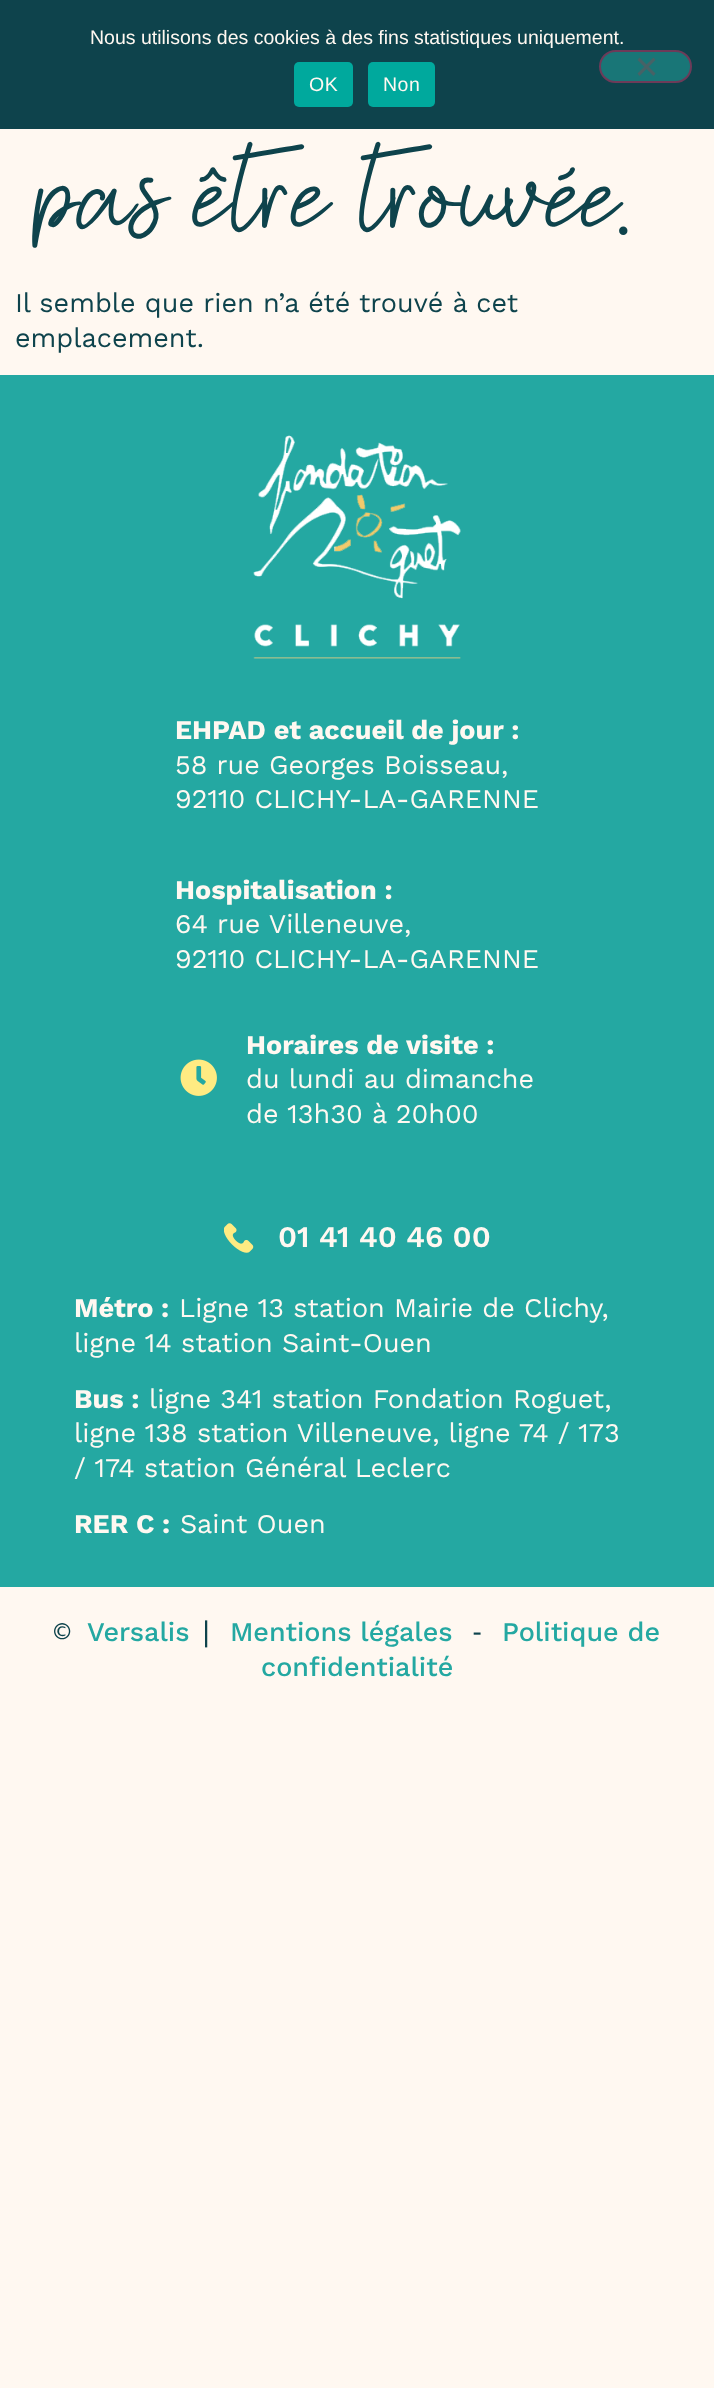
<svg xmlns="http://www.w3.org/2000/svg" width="714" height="2388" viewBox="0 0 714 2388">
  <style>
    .t1 { font: 19.5px Liberation Sans; fill: #fff8f1; }
    .t2 { font: 19.5px Liberation Sans; letter-spacing: 0.5px; fill: #fff8f1; }
    .t3 { font: 102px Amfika; fill: #0e434c; }
    .t4 { font: 27px Work Sans; fill: #0e434c; }
    .t5 { font: bold 27px Work Sans; fill: #fff8f1; }
    .t6 { font: 27px Work Sans; fill: #fff8f1; }
    .t7 { font: 600 30px Work Sans; fill: #fff8f1; }
    .t8 { font: 27px DejaVu Sans Mono; fill: #0e434c; }
    .t9 { font: 500 27px Work Sans; fill: #24a8a2; }
  </style>
  <rect width="100%" height="100%" fill="#fff8f1"/>
  <rect x="0" y="0" width="714" height="129" fill="#0e434c"/>
  <text x="90" y="44" class="t1">Nous utilisons des cookies à des fins statistiques uniquement.</text>
  <rect x="600" y="51" width="91" height="31" rx="15.5" fill="#197677" stroke="#6d3b59" stroke-width="2"/>
  <path d="M653.5 57.5L655.5 60L639.5 76L637.5 73.5Z" fill="#476266"/>
  <path d="M637.5 60L639.5 57.5L655.5 73.5L653.5 76Z" fill="#476266"/>
  <rect x="294" y="62" width="59" height="45" rx="5" fill="#00a99d"/>
  <text x="309" y="91" class="t2">OK</text>
  <rect x="368" y="62" width="67" height="45" rx="5" fill="#00a99d"/>
  <text x="383" y="91" class="t2">Non</text>
  <text x="30" y="231" class="t3">pas être trouvée.</text>
  <text x="15" y="312" class="t4">Il semble que rien n’a été trouvé à cet</text>
  <text x="15" y="347" class="t4">emplacement.</text>
  <rect x="0" y="375" width="714" height="1212" fill="#24a8a2"/>
  <image x="253" y="435" width="208" height="224" href="images/1.png"/>
  <text x="175" y="739" class="t5">EHPAD et accueil de jour :</text>
  <text x="175" y="774" class="t6">58 rue Georges Boisseau,</text>
  <text x="175" y="808" class="t6">92110 CLICHY-LA-GARENNE</text>
  <text x="175" y="899" class="t5">Hospitalisation :</text>
  <text x="175" y="933" class="t6">64 rue Villeneuve,</text>
  <text x="175" y="968" class="t6">92110 CLICHY-LA-GARENNE</text>
  <image x="180" y="1059" width="37" height="37" href="images/2.png"/>
  <text x="246" y="1054" class="t5">Horaires de visite :</text>
  <text x="246" y="1088" class="t6">du lundi au dimanche</text>
  <text x="246" y="1123" class="t6">de 13h30 à 20h00</text>
  <image x="224" y="1223" width="30" height="30" href="images/3.png"/>
  <text x="278" y="1247" class="t7">01 41 40 46 00</text>
  <text x="74" y="1317" class="t5">Métro :</text>
  <text x="179" y="1317" class="t6">Ligne 13 station Mairie de Clichy,</text>
  <text x="74" y="1352" class="t6">ligne 14 station Saint-Ouen</text>
  <text x="74" y="1408" class="t5">Bus :</text>
  <text x="149" y="1408" class="t6">ligne 341 station Fondation Roguet,</text>
  <text x="74" y="1442" class="t6">ligne 138 station Villeneuve, ligne 74 / 173</text>
  <text x="74" y="1477" class="t6">/ 174 station Général Leclerc</text>
  <text x="74" y="1533" class="t5">RER C :</text>
  <text x="180" y="1533" class="t6">Saint Ouen</text>
  <text x="54" y="1641" class="t8">©</text>
  <text x="87" y="1641" class="t9">Versalis</text>
  <text x="198" y="1641" class="t8">|</text>
  <text x="230" y="1641" class="t9">Mentions légales</text>
  <text x="469" y="1641" class="t8">-</text>
  <text x="502" y="1641" class="t9">Politique de</text>
  <text x="261" y="1676" class="t9">confidentialité</text>
</svg>
